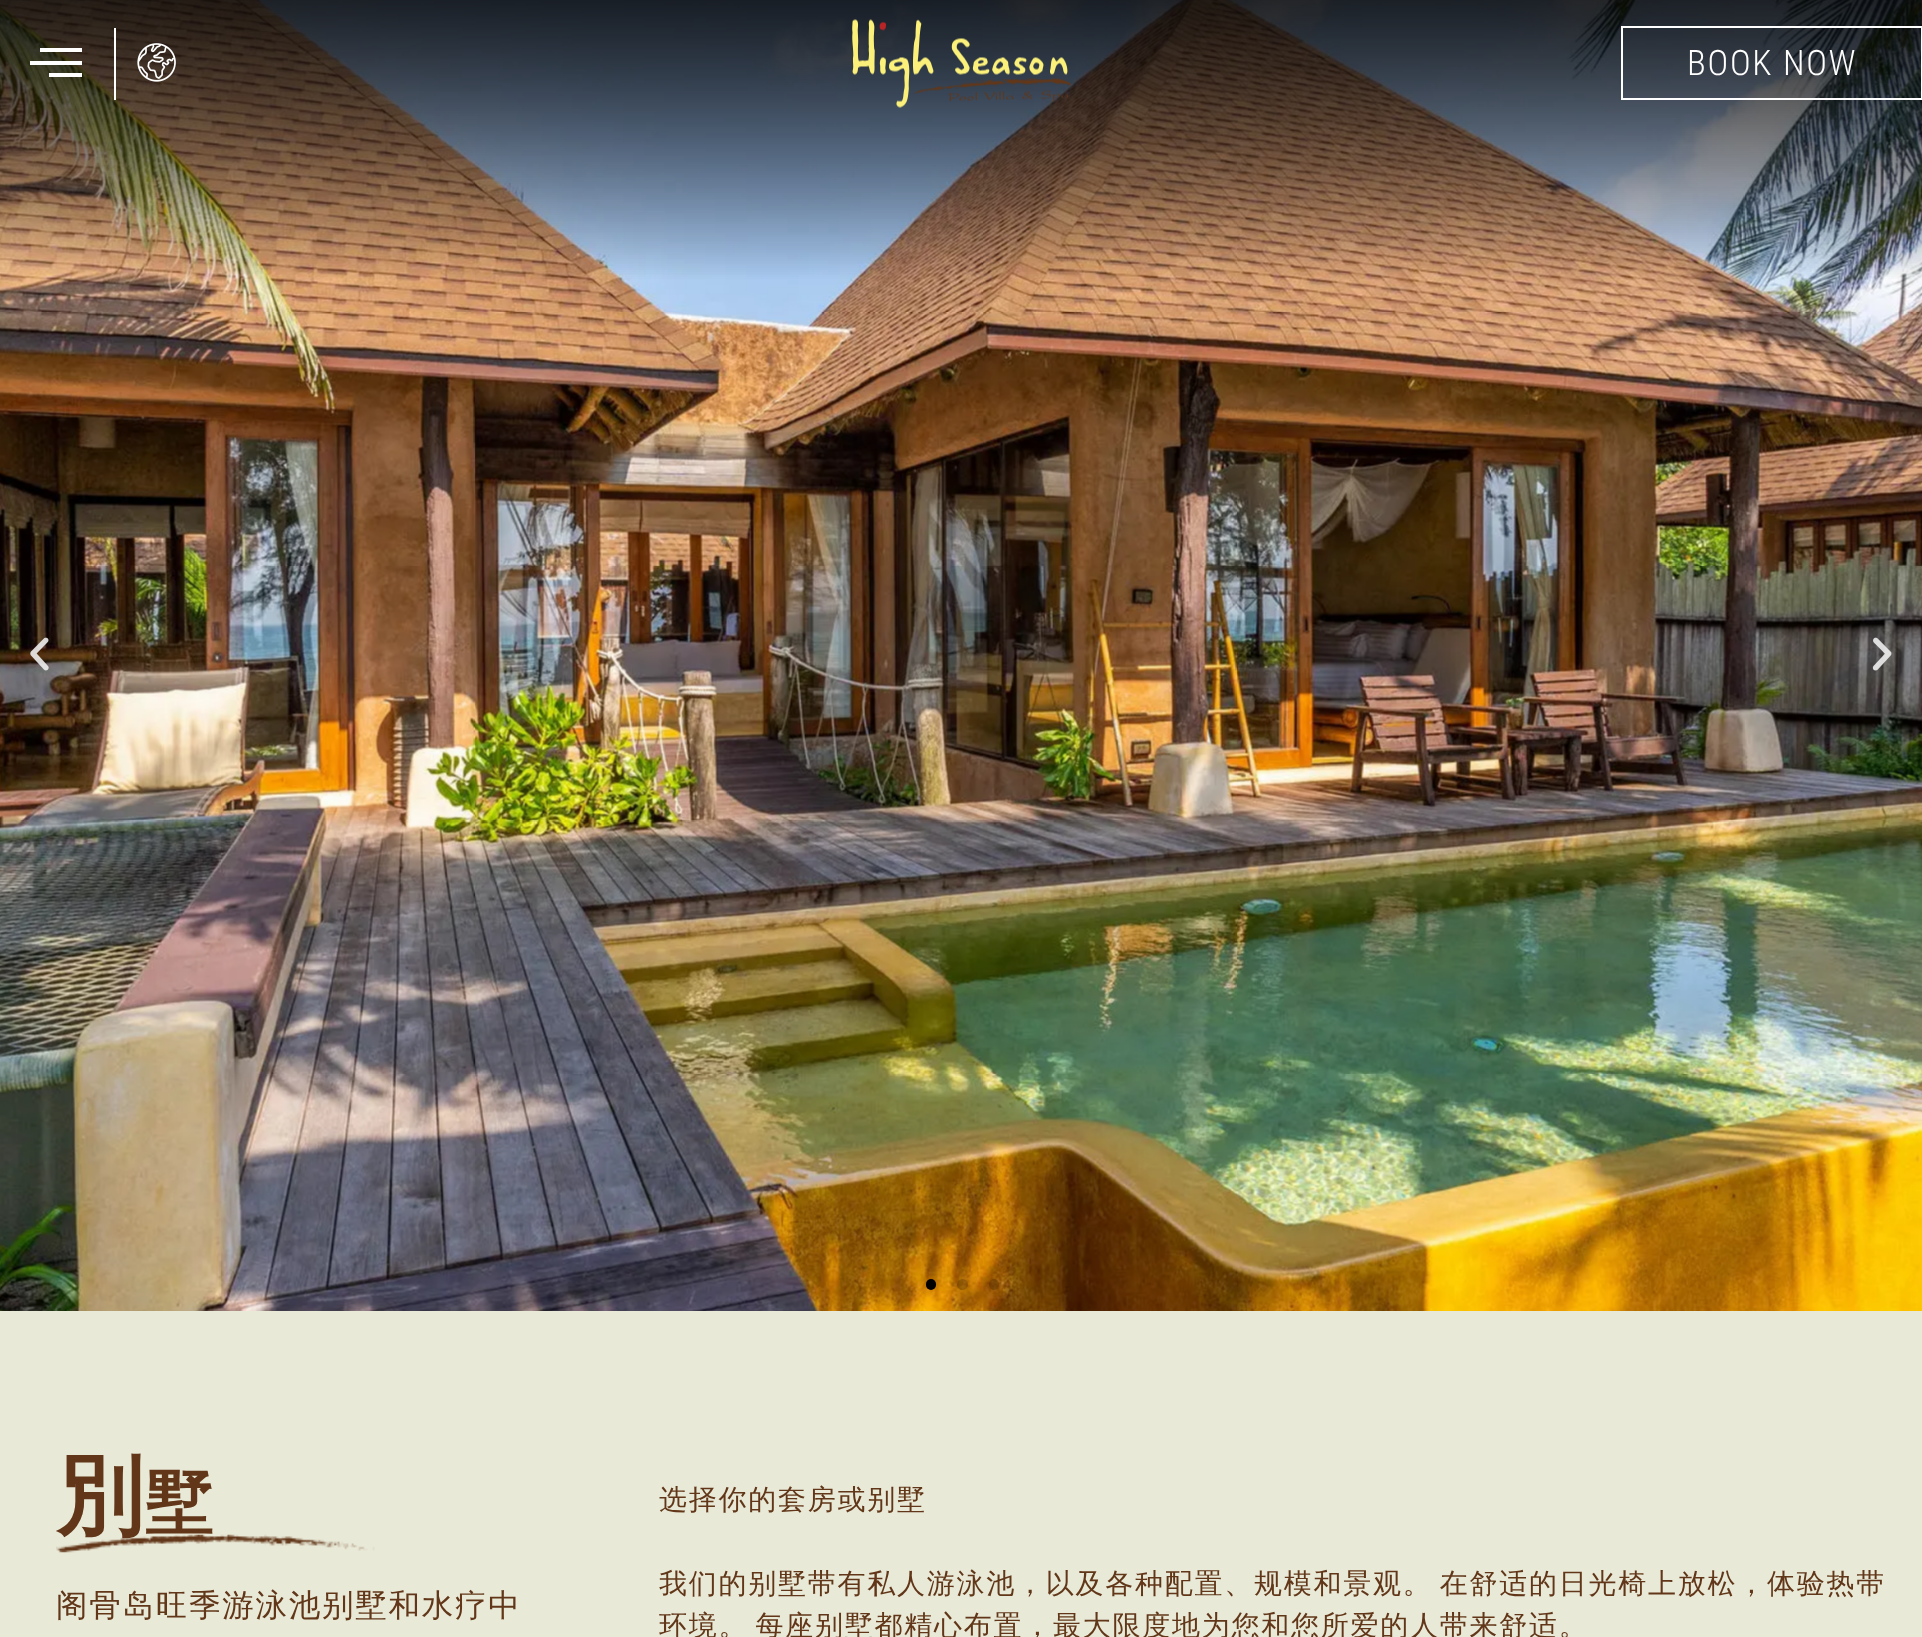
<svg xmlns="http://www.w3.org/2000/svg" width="1922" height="1637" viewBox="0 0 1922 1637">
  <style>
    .t1 { font: 300 35px Roboto Condensed; letter-spacing: 1.75px; fill: #fff; }
    .t2 { font: bold 88px WenQuanYi Zen Hei; letter-spacing: 1.75px; fill: #623719; }
    .t3 { font: bold 68px WenQuanYi Zen Hei; letter-spacing: 1.75px; fill: #623719; }
    .t4 { font: 500 31.5px WenQuanYi Zen Hei; letter-spacing: 1.75px; fill: #623719; }
    .t5 { font: 500 28px WenQuanYi Zen Hei; letter-spacing: 1.75px; fill: #623719; }
  </style>
  <rect width="100%" height="100%" fill="#e9e9d7"/>
  <image x="0" y="0" width="1922" height="1311" href="images/3.png"/>
  <path d="M30 65H82V61H30ZM49 77H82V73H49ZM40 48V52H82V48Z" fill="#fff"/>
  <rect x="114" y="28" width="2" height="72" fill="#fff"/>
  <image x="137" y="43" width="39" height="39" href="images/1.png"/>
  <image x="852" y="19" width="219" height="89" href="images/2.png"/>
  <rect x="1622" y="27" width="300" height="72" fill="none" stroke="#fff" stroke-width="2"/>
  <text x="1687" y="75" class="t1">BOOK NOW</text>
  <image x="30" y="637" width="19" height="34" href="images/4.png"/>
  <image x="1872" y="637" width="20" height="34" href="images/5.png"/>
  <rect x="926" y="1279" width="10" height="11" rx="5" fill="#000"/>
  <circle cx="962.5" cy="1284.5" r="5.5" fill="#00000033"/>
  <rect x="989" y="1279" width="10" height="11" rx="5" fill="#00000033"/>
  <image x="56" y="1534" width="319" height="19" href="images/6.png"/>
  <text x="56" y="1526" class="t2">別</text>
  <text x="145" y="1526" class="t3">墅</text>
  <text x="56" y="1616" class="t4">阁骨岛旺季游泳池别墅和水疗中</text>
  <text x="659" y="1509" class="t5">选择你的套房或别墅</text>
  <text x="659" y="1593" word-spacing="-3" class="t5">我们的别墅带有私人游泳池，以及各种配置、规模和景观。 在舒适的日光椅上放松，体验热带</text>
  <text x="659" y="1635" word-spacing="-3" class="t5">环境。 每座别墅都精心布置，最大限度地为您和您所爱的人带来舒适。</text>
</svg>
